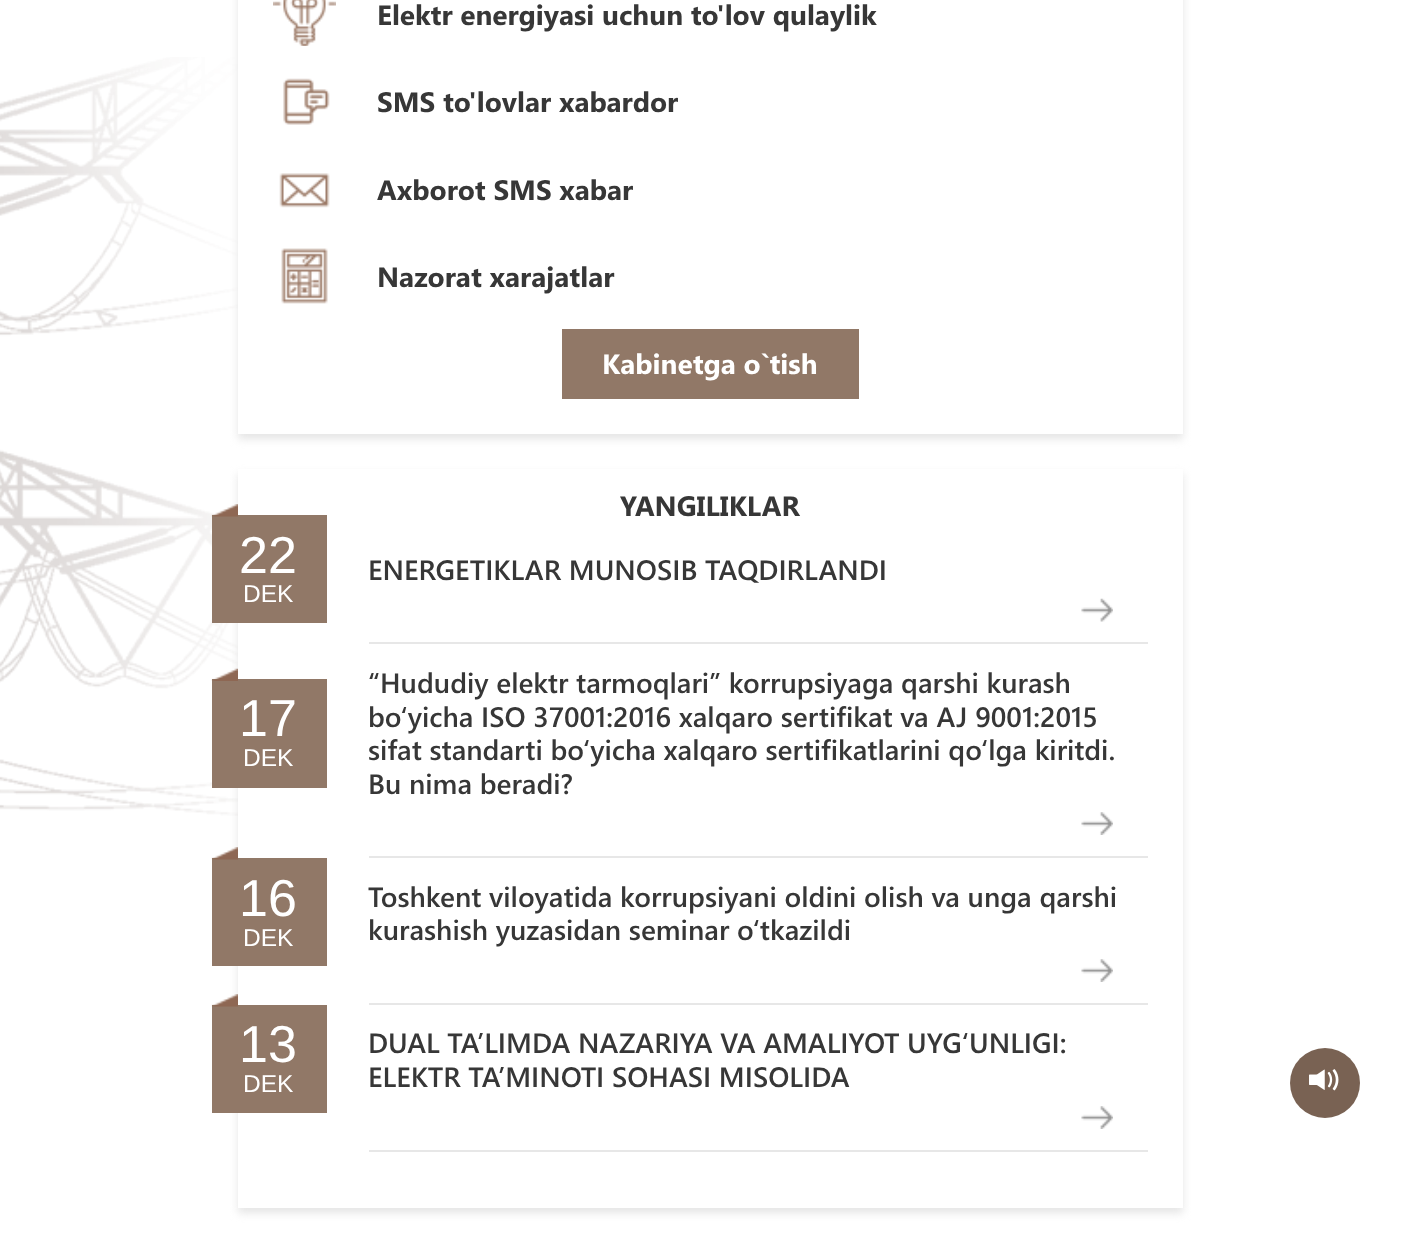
<svg xmlns="http://www.w3.org/2000/svg" width="1419" height="1248" viewBox="0 0 1419 1248">
  <style>
    .t1 { font: bold 28px Segoe UI; fill: #373737; }
    .t2 { font: bold 28px Segoe UI; fill: #fff; }
    .t3 { font: 52px Liberation Sans; fill: #fff; }
    .t4 { font: 24.5px Liberation Sans; fill: #fff; }
    .t5 { font: 600 28px Segoe UI; fill: #373737; }
  </style>
  <rect width="100%" height="100%" fill="#fff"/>
  <image x="0" y="57" width="238" height="759" href="images/1.png"/>
  <rect x="238" y="-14" width="945" height="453" fill="#e5e5e5" filter="blur(4.5px)"/>
  <rect x="238" y="0" width="945" height="434" fill="#fff"/>
  <image x="273" y="0" width="63" height="46" href="images/2.png"/>
  <text x="377" y="25" class="t1">Elektr energiyasi uchun to'lov qulaylik</text>
  <image x="283" y="78" width="47" height="47" href="images/3.png"/>
  <text x="377" y="112" class="t1">SMS to'lovlar xabardor</text>
  <image x="279" y="173" width="51" height="35" href="images/4.png"/>
  <text x="377" y="200" class="t1">Axborot SMS xabar</text>
  <image x="281" y="248" width="47" height="56" href="images/5.png"/>
  <text x="377" y="287" class="t1">Nazorat xarajatlar</text>
  <rect x="562" y="329" width="297" height="70" fill="#917867"/>
  <text x="602" y="374" class="t2">Kabinetga o`tish</text>
  <rect x="238" y="474" width="945" height="739" fill="#e5e5e5" filter="blur(4.5px)"/>
  <rect x="238" y="469" width="945" height="739" fill="#fff"/>
  <text x="620" y="516" class="t1">YANGILIKLAR</text>
  <rect x="212" y="515" width="115" height="108" fill="#917867"/>
  <image x="211" y="504" width="27" height="13" href="images/6.png"/>
  <text x="239" y="573" class="t3">22</text>
  <text x="243" y="602" class="t4">DEK</text>
  <text x="368" y="580" class="t5">ENERGETIKLAR MUNOSIB TAQDIRLANDI</text>
  <image x="1081" y="598" width="32" height="24" href="images/7.png"/>
  <rect x="369" y="642" width="779" height="2" fill="#e7e7e7"/>
  <rect x="212" y="679" width="115" height="109" fill="#917867"/>
  <image x="211" y="668" width="27" height="13" href="images/8.png"/>
  <text x="239" y="736" class="t3">17</text>
  <text x="243" y="766" class="t4">DEK</text>
  <text x="368" y="693" class="t5">“Hududiy elektr tarmoqlari” korrupsiyaga qarshi kurash</text>
  <text x="368" y="727" class="t5">bo‘yicha ISO 37001:2016 xalqaro sertifikat va AJ 9001:2015</text>
  <text x="368" y="760" class="t5">sifat standarti bo‘yicha xalqaro sertifikatlarini qo‘lga kiritdi.</text>
  <text x="368" y="794" class="t5">Bu nima beradi?</text>
  <image x="1081" y="812" width="32" height="23" href="images/9.png"/>
  <rect x="369" y="856" width="779" height="2" fill="#e7e7e7"/>
  <rect x="212" y="858" width="115" height="108" fill="#917867"/>
  <image x="211" y="847" width="27" height="13" href="images/10.png"/>
  <text x="239" y="916" class="t3">16</text>
  <text x="243" y="946" class="t4">DEK</text>
  <text x="368" y="907" class="t5">Toshkent viloyatida korrupsiyani oldini olish va unga qarshi</text>
  <text x="368" y="940" class="t5">kurashish yuzasidan seminar o‘tkazildi</text>
  <image x="1081" y="959" width="32" height="23" href="images/9.png"/>
  <rect x="369" y="1003" width="779" height="2" fill="#e7e7e7"/>
  <rect x="212" y="1005" width="115" height="108" fill="#917867"/>
  <image x="211" y="994" width="27" height="13" href="images/10.png"/>
  <text x="239" y="1062" class="t3">13</text>
  <text x="243" y="1092" class="t4">DEK</text>
  <text x="368" y="1053" class="t5">DUAL TA’LIMDA NAZARIYA VA AMALIYOT UYG‘UNLIGI:</text>
  <text x="368" y="1087" class="t5">ELEKTR TA’MINOTI SOHASI MISOLIDA</text>
  <image x="1081" y="1106" width="32" height="23" href="images/9.png"/>
  <rect x="369" y="1150" width="779" height="2" fill="#e7e7e7"/>
  <circle cx="1325" cy="1083" r="35" fill="#796253"/>
  <image x="1309" y="1069" width="30" height="22" href="images/11.png"/>
</svg>
